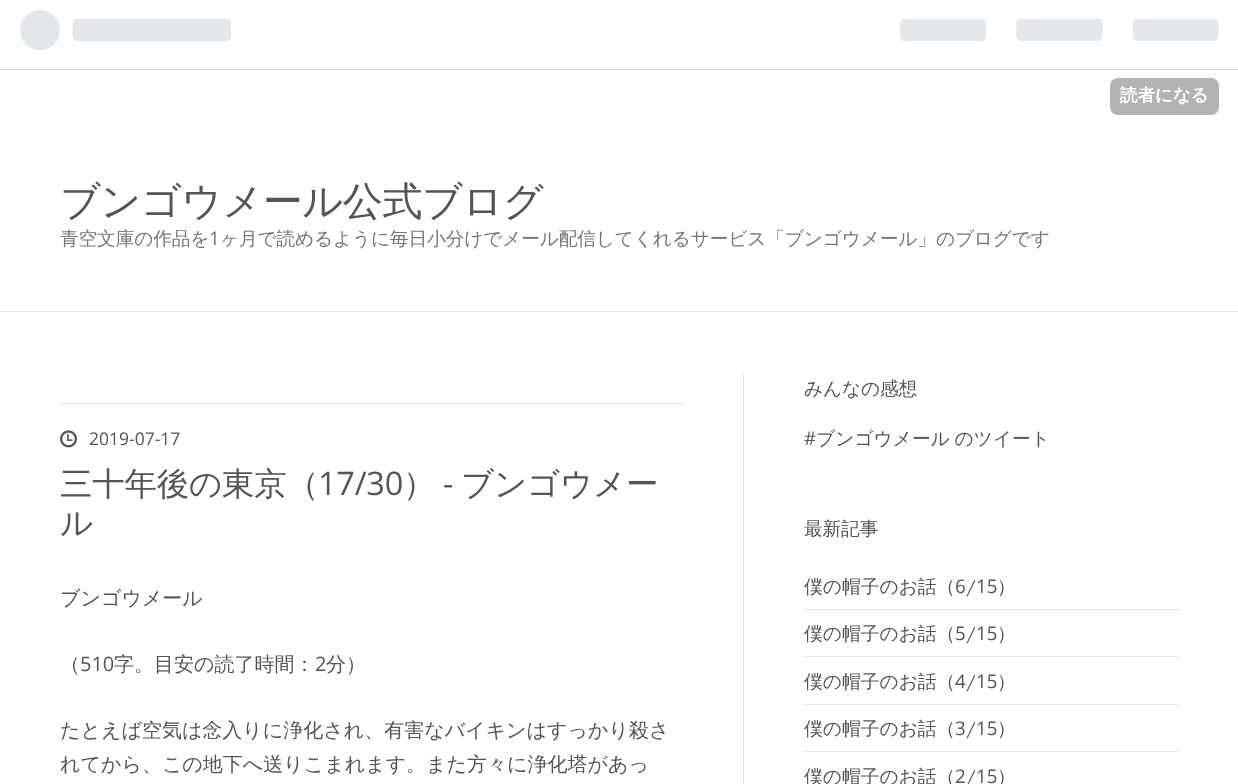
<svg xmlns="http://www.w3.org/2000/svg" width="1238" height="784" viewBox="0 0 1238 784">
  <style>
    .t1 { font: bold 17.5px WenQuanYi Zen Hei; fill: #fff; }
    .t2 { font: 500 40px WenQuanYi Zen Hei; letter-spacing: -0.4px; fill: #555; }
    .t3 { font: 500 18.75px WenQuanYi Zen Hei; letter-spacing: -0.2px; fill: #777; }
    .t4 { font: 18.75px Open Sans; letter-spacing: -0.2px; fill: #777; }
    .t5 { font: 17.5px Open Sans; fill: #555; }
    .t6 { font: 500 32.5px WenQuanYi Zen Hei; letter-spacing: -0.25px; fill: #555; }
    .t7 { font: 32.5px Open Sans; letter-spacing: -0.25px; fill: #555; }
    .t8 { font: 500 20px WenQuanYi Zen Hei; fill: #555; }
    .t9 { font: 20px Open Sans; fill: #555; }
    .t10 { font: 500 18.75px WenQuanYi Zen Hei; letter-spacing: -0.2px; fill: #555; }
    .t11 { font: 18.75px Open Sans; fill: #555; }
    .t12 { font: 500 18.75px WenQuanYi Zen Hei; fill: #555; }
  </style>
  <rect width="100%" height="100%" fill="#fff"/>
  <rect x="0" y="69" width="1238" height="1" fill="#d2d8dd"/>
  <image x="20" y="10" width="211" height="40" href="images/1.png"/>
  <image x="900" y="19" width="319" height="22" href="images/2.png"/>
  <rect x="1110" y="78" width="109" height="37" rx="8" fill="#b1b3b5"/>
  <text x="1120" y="101" class="t1">読者になる</text>
  <rect x="0" y="311" width="1238" height="1" fill="#e4e4e4"/>
  <text x="60" y="215" class="t2">ブンゴウメール公式ブログ</text>
  <text x="60" y="245" class="t3">青空文庫の作品を</text>
  <text x="209" y="245" class="t4">1</text>
  <text x="220" y="245" class="t3">ヶ月で読めるように毎日小分けでメール配信してくれるサービス「ブンゴウメール」のブログです</text>
  <rect x="743" y="373" width="1" height="411" fill="#e4e4e4"/>
  <rect x="60" y="403" width="623" height="1" fill="#e4e4e4"/>
  <image x="60" y="430" width="17" height="18" href="images/3.png"/>
  <text x="89" y="445" class="t5">2019-07-17</text>
  <text x="60" y="495" class="t6">三十年後の東京（</text>
  <text x="318" y="495" class="t7">17/30</text>
  <text x="403" y="495" class="t6">）</text>
  <text x="443" y="495" class="t7">-</text>
  <text x="461" y="495" class="t6">ブンゴウメー</text>
  <text x="60" y="534" class="t6">ル</text>
  <text x="60" y="605" class="t8">ブンゴウメール</text>
  <text x="60" y="671" class="t8">（</text>
  <text x="80" y="671" class="t9">510</text>
  <text x="114" y="671" class="t8">字。目安の読了時間：</text>
  <text x="315" y="671" class="t9">2</text>
  <text x="326" y="671" class="t8">分）</text>
  <text x="60" y="737" class="t8">たとえば空気は念入りに浄化され、有害なバイキンはすっかり殺さ</text>
  <text x="60" y="771" class="t8">れてから、この地下へ送りこまれます。また方々に浄化塔があっ</text>
  <text x="804" y="395" class="t10">みんなの感想</text>
  <text x="804" y="445" class="t11">#</text>
  <text x="816" y="445" word-spacing="-1" class="t12">ブンゴウメール のツイート</text>
  <text x="804" y="535" class="t10">最新記事</text>
  <text x="804" y="593" class="t12">僕の帽子のお話（</text>
  <text x="955" y="593" class="t11">6</text>
  <text x="966" y="593" class="t12">/</text>
  <text x="976" y="593" class="t11">15</text>
  <text x="997" y="593" class="t12">）</text>
  <rect x="804" y="609" width="375" height="1" fill="#e4e4e4"/>
  <text x="804" y="640" class="t12">僕の帽子のお話（</text>
  <text x="955" y="640" class="t11">5</text>
  <text x="966" y="640" class="t12">/</text>
  <text x="976" y="640" class="t11">15</text>
  <text x="997" y="640" class="t12">）</text>
  <rect x="804" y="656" width="375" height="1" fill="#e4e4e4"/>
  <text x="804" y="688" class="t12">僕の帽子のお話（</text>
  <text x="955" y="688" class="t11">4</text>
  <text x="966" y="688" class="t12">/</text>
  <text x="976" y="688" class="t11">15</text>
  <text x="997" y="688" class="t12">）</text>
  <rect x="804" y="704" width="375" height="1" fill="#e4e4e4"/>
  <text x="804" y="735" class="t12">僕の帽子のお話（</text>
  <text x="955" y="735" class="t11">3</text>
  <text x="966" y="735" class="t12">/</text>
  <text x="976" y="735" class="t11">15</text>
  <text x="997" y="735" class="t12">）</text>
  <rect x="804" y="751" width="375" height="1" fill="#e4e4e4"/>
  <text x="804" y="783" class="t12">僕の帽子のお話（</text>
  <text x="955" y="783" class="t11">2</text>
  <text x="966" y="783" class="t12">/</text>
  <text x="976" y="783" class="t11">15</text>
  <text x="997" y="783" class="t12">）</text>
</svg>
